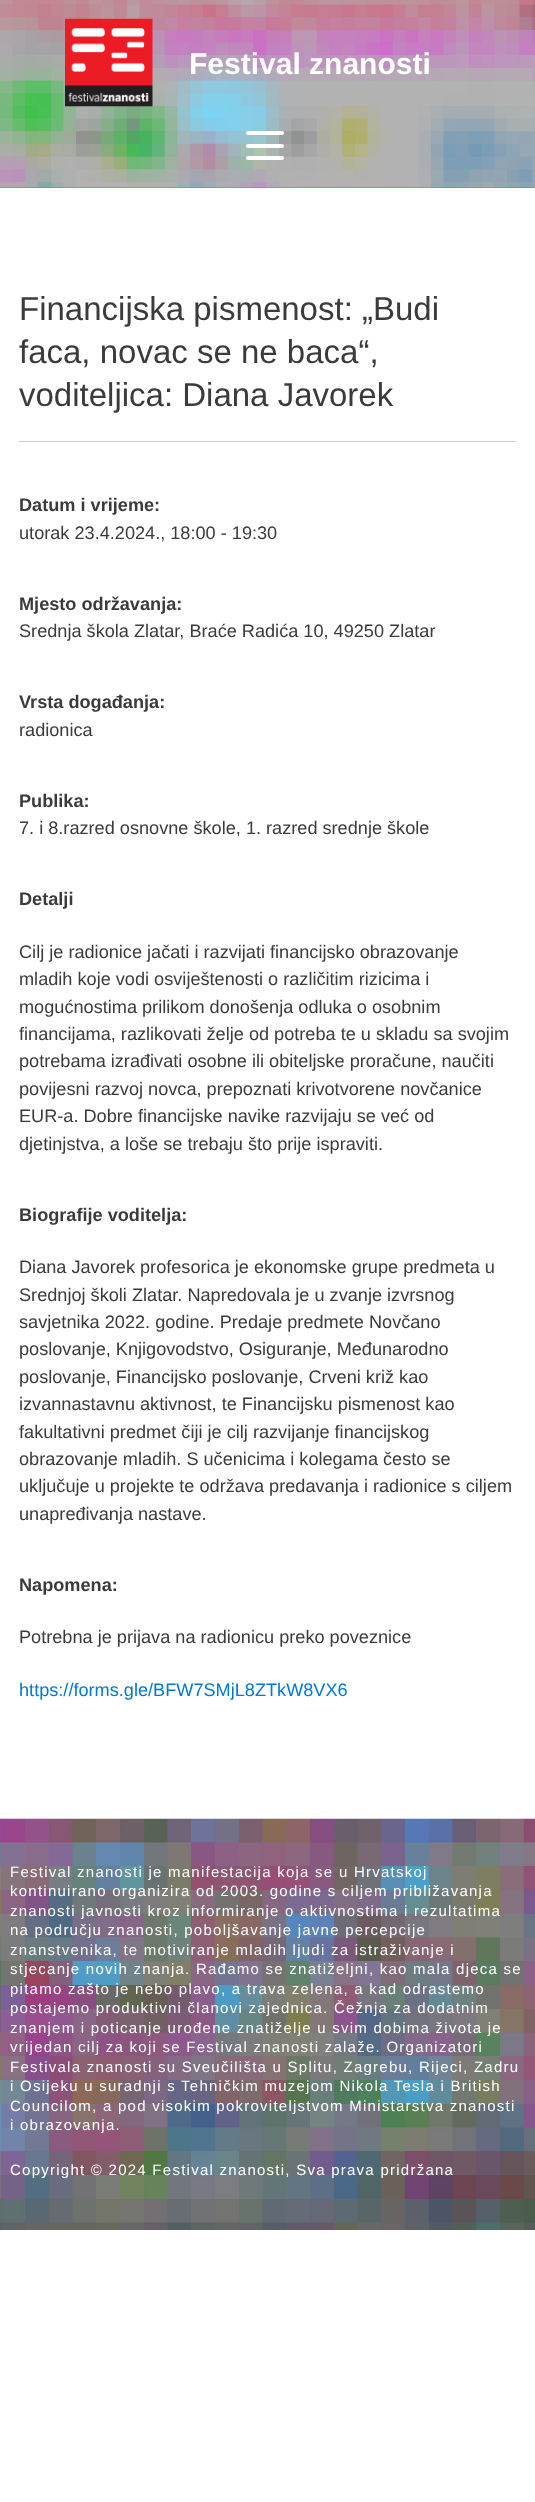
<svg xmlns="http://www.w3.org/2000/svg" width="535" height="2502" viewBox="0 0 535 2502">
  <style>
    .t1 { font: bold 30px Liberation Sans; fill: #fff; }
    .t2 { font: 33px Liberation Sans; fill: #3b3b3b; }
    .t3 { font: bold 18.15px Liberation Sans; fill: #3b3b3b; }
    .t4 { font: 18.15px Liberation Sans; fill: #3b3b3b; }
    .t5 { font: 18.15px Liberation Sans; fill: #07d; }
    .t6 { font: 15px Liberation Sans; letter-spacing: 1.25px; fill: #fff; }
  </style>
  <rect width="100%" height="100%" fill="#fff"/>
  <rect x="0" y="187" width="535" height="1" fill="#08a2bd"/>
  <image x="0" y="0" width="535" height="188" href="images/1.png"/>
  <image x="65" y="18" width="88" height="89" href="images/2.png"/>
  <text x="189" y="74" class="t1">Festival znanosti</text>
  <rect x="246" y="131" width="38" height="4" rx="2" fill="#fff"/>
  <rect x="246" y="144" width="38" height="4" rx="2" fill="#fff"/>
  <rect x="246" y="156" width="38" height="4" rx="2" fill="#fff"/>
  <rect x="19" y="441" width="497" height="1" fill="#ccc"/>
  <text x="19" y="320" class="t2">Financijska pismenost: „Budi</text>
  <text x="19" y="363" class="t2">faca, novac se ne baca“,</text>
  <text x="19" y="406" class="t2">voditeljica: Diana Javorek</text>
  <text x="19" y="511" class="t3">Datum i vrijeme:</text>
  <text x="19" y="539" class="t4">utorak 23.4.2024., 18:00 - 19:30</text>
  <text x="19" y="610" class="t3">Mjesto održavanja:</text>
  <text x="19" y="637" class="t4">Srednja škola Zlatar, Braće Radića 10, 49250 Zlatar</text>
  <text x="19" y="708" class="t3">Vrsta događanja:</text>
  <text x="19" y="736" class="t4">radionica</text>
  <text x="19" y="807" class="t3">Publika:</text>
  <text x="19" y="834" class="t4">7. i 8.razred osnovne škole, 1. razred srednje škole</text>
  <text x="19" y="905" class="t3">Detalji</text>
  <text x="19" y="958" class="t4">Cilj je radionice jačati i razvijati financijsko obrazovanje</text>
  <text x="19" y="985" class="t4">mladih koje vodi osviještenosti o različitim rizicima i</text>
  <text x="19" y="1013" class="t4">mogućnostima prilikom donošenja odluka o osobnim</text>
  <text x="19" y="1040" class="t4">financijama, razlikovati želje od potreba te u skladu sa svojim</text>
  <text x="19" y="1067" class="t4">potrebama izrađivati osobne ili obiteljske proračune, naučiti</text>
  <text x="19" y="1095" class="t4">povijesni razvoj novca, prepoznati krivotvorene novčanice</text>
  <text x="19" y="1122" class="t4">EUR-a. Dobre financijske navike razvijaju se već od</text>
  <text x="19" y="1150" class="t4">djetinjstva, a loše se trebaju što prije ispraviti.</text>
  <text x="19" y="1221" class="t3">Biografije voditelja:</text>
  <text x="19" y="1273" class="t4">Diana Javorek profesorica je ekonomske grupe predmeta u</text>
  <text x="19" y="1301" class="t4">Srednjoj školi Zlatar. Napredovala je u zvanje izvrsnog</text>
  <text x="19" y="1328" class="t4">savjetnika 2022. godine. Predaje predmete Novčano</text>
  <text x="19" y="1355" class="t4">poslovanje, Knjigovodstvo, Osiguranje, Međunarodno</text>
  <text x="19" y="1383" class="t4">poslovanje, Financijsko poslovanje, Crveni križ kao</text>
  <text x="19" y="1410" class="t4">izvannastavnu aktivnost, te Financijsku pismenost kao</text>
  <text x="19" y="1438" class="t4">fakultativni predmet čiji je cilj razvijanje financijskog</text>
  <text x="19" y="1465" class="t4">obrazovanje mladih. S učenicima i kolegama često se</text>
  <text x="19" y="1492" class="t4">uključuje u projekte te održava predavanja i radionice s ciljem</text>
  <text x="19" y="1520" class="t4">unapređivanja nastave.</text>
  <text x="19" y="1591" class="t3">Napomena:</text>
  <text x="19" y="1643" class="t4">Potrebna je prijava na radionicu preko poveznice</text>
  <text x="19" y="1696" class="t5">https://forms.gle/BFW7SMjL8ZTkW8VX6</text>
  <image x="0" y="1818" width="535" height="412" href="images/3.png"/>
  <text x="10" y="1877" class="t6">Festival znanosti je manifestacija koja se u Hrvatskoj</text>
  <text x="10" y="1896" class="t6">kontinuirano organizira od 2003. godine s ciljem približavanja</text>
  <text x="10" y="1916" class="t6">znanosti javnosti kroz informiranje o aktivnostima i rezultatima</text>
  <text x="10" y="1935" class="t6">na području znanosti, poboljšavanje javne percepcije</text>
  <text x="10" y="1955" class="t6">znanstvenika, te motiviranje mladih ljudi za istraživanje i</text>
  <text x="10" y="1974" class="t6">stjecanje novih znanja. Rađamo se znatiželjni, kao mala djeca se</text>
  <text x="10" y="1994" class="t6">pitamo zašto je nebo plavo, a trava zelena, a kad odrastemo</text>
  <text x="10" y="2013" class="t6">postajemo produktivni članovi zajednica. Čežnja za dodatnim</text>
  <text x="10" y="2033" class="t6">znanjem i poticanje urođene znatiželje u svim dobima života je</text>
  <text x="10" y="2052" class="t6">vrijedan cilj za koji se Festival znanosti zalaže. Organizatori</text>
  <text x="10" y="2072" class="t6">Festivala znanosti su Sveučilišta u Splitu, Zagrebu, Rijeci, Zadru</text>
  <text x="10" y="2091" class="t6">i Osijeku u suradnji s Tehničkim muzejom Nikola Tesla i British</text>
  <text x="10" y="2111" class="t6">Councilom, a pod visokim pokroviteljstvom Ministarstva znanosti</text>
  <text x="10" y="2130" class="t6">i obrazovanja.</text>
  <text x="10" y="2175" class="t6">Copyright © 2024 Festival znanosti, Sva prava pridržana</text>
</svg>
